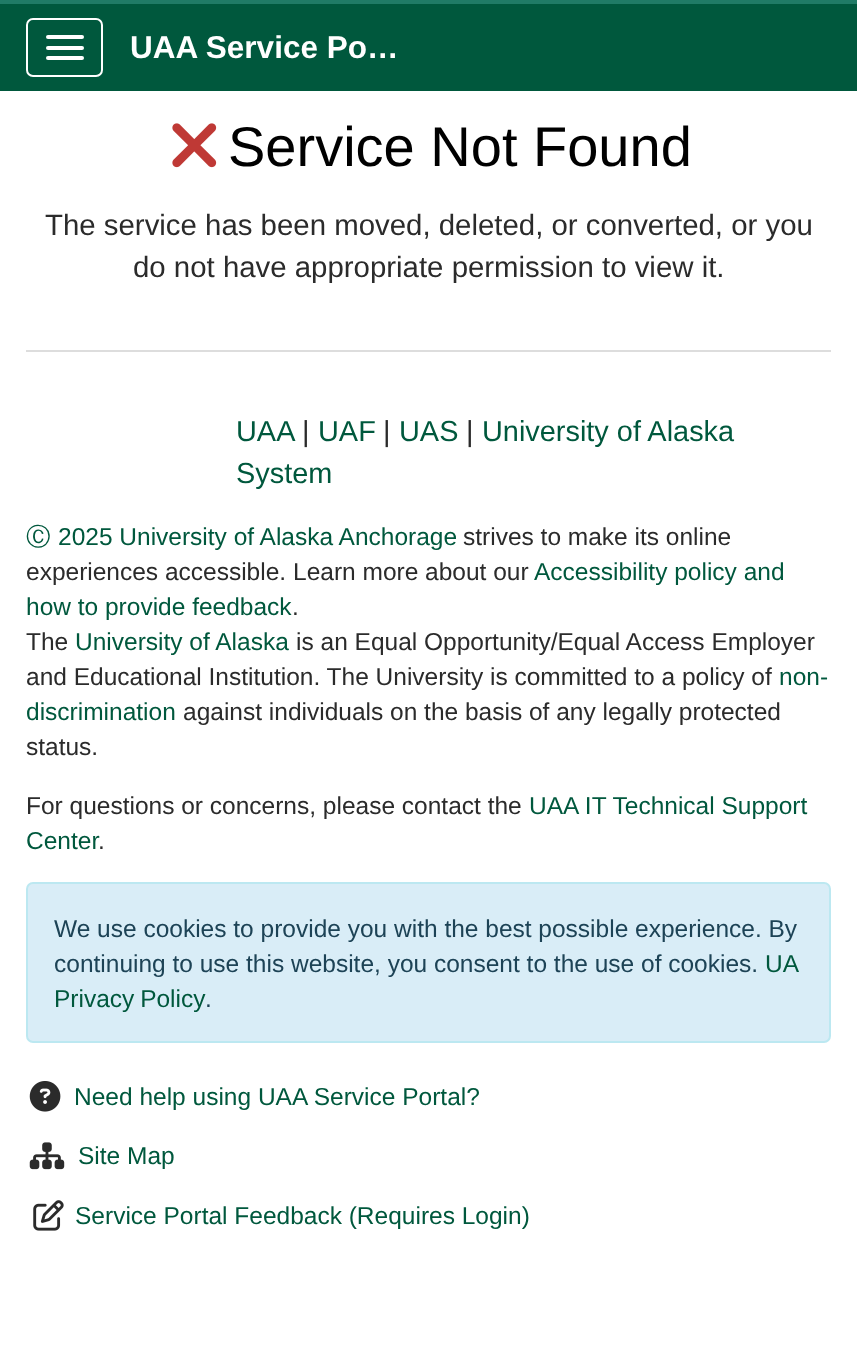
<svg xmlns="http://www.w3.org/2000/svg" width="857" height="1372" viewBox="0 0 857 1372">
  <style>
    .t1 { font: bold 31.5px Liberation Sans; fill: #fff; }
    .t2 { font: 56px Liberation Sans; fill: #000; }
    .t3 { font: 29.4px Liberation Sans; fill: #2b2b2b; }
    .t4 { font: 28.9px Liberation Sans; fill: #00583d; }
    .t5 { font: 28.9px Liberation Sans; fill: #2b2b2b; }
    .t6 { font: 500 24.5px WenQuanYi Zen Hei; fill: #00583d; }
    .t7 { font: 24.5px Liberation Sans; fill: #00583d; }
    .t8 { font: 24.5px Liberation Sans; fill: #2b2b2b; }
    .t9 { font: 24.5px Liberation Sans; fill: #1d4356; }
  </style>
  <rect width="100%" height="100%" fill="#fff"/>
  <rect x="0" y="4" width="857" height="87" fill="#00583d"/>
  <rect x="0" y="0" width="857" height="4" fill="#207b66"/>
  <rect x="27" y="19" width="75" height="57" rx="6" fill="none" stroke="#fff" stroke-width="2"/>
  <rect x="46" y="35" width="38" height="4" rx="2" fill="#fff"/>
  <rect x="46" y="46" width="38" height="4" rx="2" fill="#fff"/>
  <rect x="46" y="56" width="38" height="4" rx="2" fill="#fff"/>
  <text x="130" y="58" class="t1">UAA Service Po…</text>
  <image x="172" y="123" width="45" height="45" href="images/1.png"/>
  <text x="228" y="166" class="t2">Service Not Found</text>
  <text x="45" y="235" class="t3">The service has been moved, deleted, or converted, or you</text>
  <text x="133" y="277" class="t3">do not have appropriate permission</text>
  <text x="602" y="277" class="t3">to view it.</text>
  <rect x="26" y="350" width="805" height="2" fill="#ddd"/>
  <text x="236" y="441" class="t4">UAA</text>
  <text x="302" y="441" class="t5">|</text>
  <text x="318" y="441" class="t4">UAF</text>
  <text x="383" y="441" class="t5">|</text>
  <text x="399" y="441" class="t4">UAS</text>
  <text x="466" y="441" class="t5">|</text>
  <text x="482" y="441" class="t4">University of Alaska</text>
  <text x="236" y="483" class="t4">System</text>
  <text x="26" y="545" class="t6">Ⓒ</text>
  <text x="58" y="545" class="t7">2025 University of Alaska Anchorage</text>
  <text x="463" y="545" class="t8">strives to make its online</text>
  <text x="26" y="580" class="t8">experiences accessible.</text>
  <text x="293" y="580" class="t8">Learn more about our</text>
  <text x="534" y="580" class="t7">Accessibility policy and</text>
  <text x="26" y="615" class="t7">how to provide feedback</text>
  <text x="292" y="615" class="t8">.</text>
  <text x="26" y="650" class="t8">The</text>
  <text x="75" y="650" class="t7">University of Alaska</text>
  <text x="296" y="650" class="t8">is an Equal Opportunity/Equal Access Employer</text>
  <text x="26" y="685" class="t8">and Educational Institution. The University is committed to a policy of</text>
  <text x="779" y="685" class="t7">non-</text>
  <text x="26" y="720" class="t7">discrimination</text>
  <text x="183" y="720" class="t8">against individuals on the basis of any legally protected</text>
  <text x="26" y="755" class="t8">status.</text>
  <text x="26" y="814" class="t8">For questions or concerns, please contact the</text>
  <text x="529" y="814" class="t7">UAA IT Technical Support</text>
  <text x="26" y="849" class="t7">Center</text>
  <text x="98" y="849" class="t8">.</text>
  <rect x="27" y="883" width="803" height="159" rx="6" fill="#d9edf7" stroke="#bce8f1" stroke-width="2"/>
  <text x="54" y="937" class="t9">We use cookies to provide you with the best possible experience. By</text>
  <text x="54" y="972" class="t9">continuing to use this website, you consent to the use of cookies.</text>
  <text x="765" y="972" class="t7">UA</text>
  <text x="54" y="1007" word-spacing="-1" class="t7">Privacy Policy</text>
  <text x="205" y="1007" class="t9">.</text>
  <image x="29" y="1081" width="32" height="31" href="images/2.png"/>
  <text x="74" y="1105" class="t7">Need help using UAA Service Portal?</text>
  <image x="29" y="1142" width="36" height="28" href="images/3.png"/>
  <text x="78" y="1164" class="t7">Site Map</text>
  <image x="33" y="1200" width="31" height="31" href="images/4.png"/>
  <text x="75" y="1224" class="t7">Service Portal Feedback (Requires Login)</text>
</svg>
